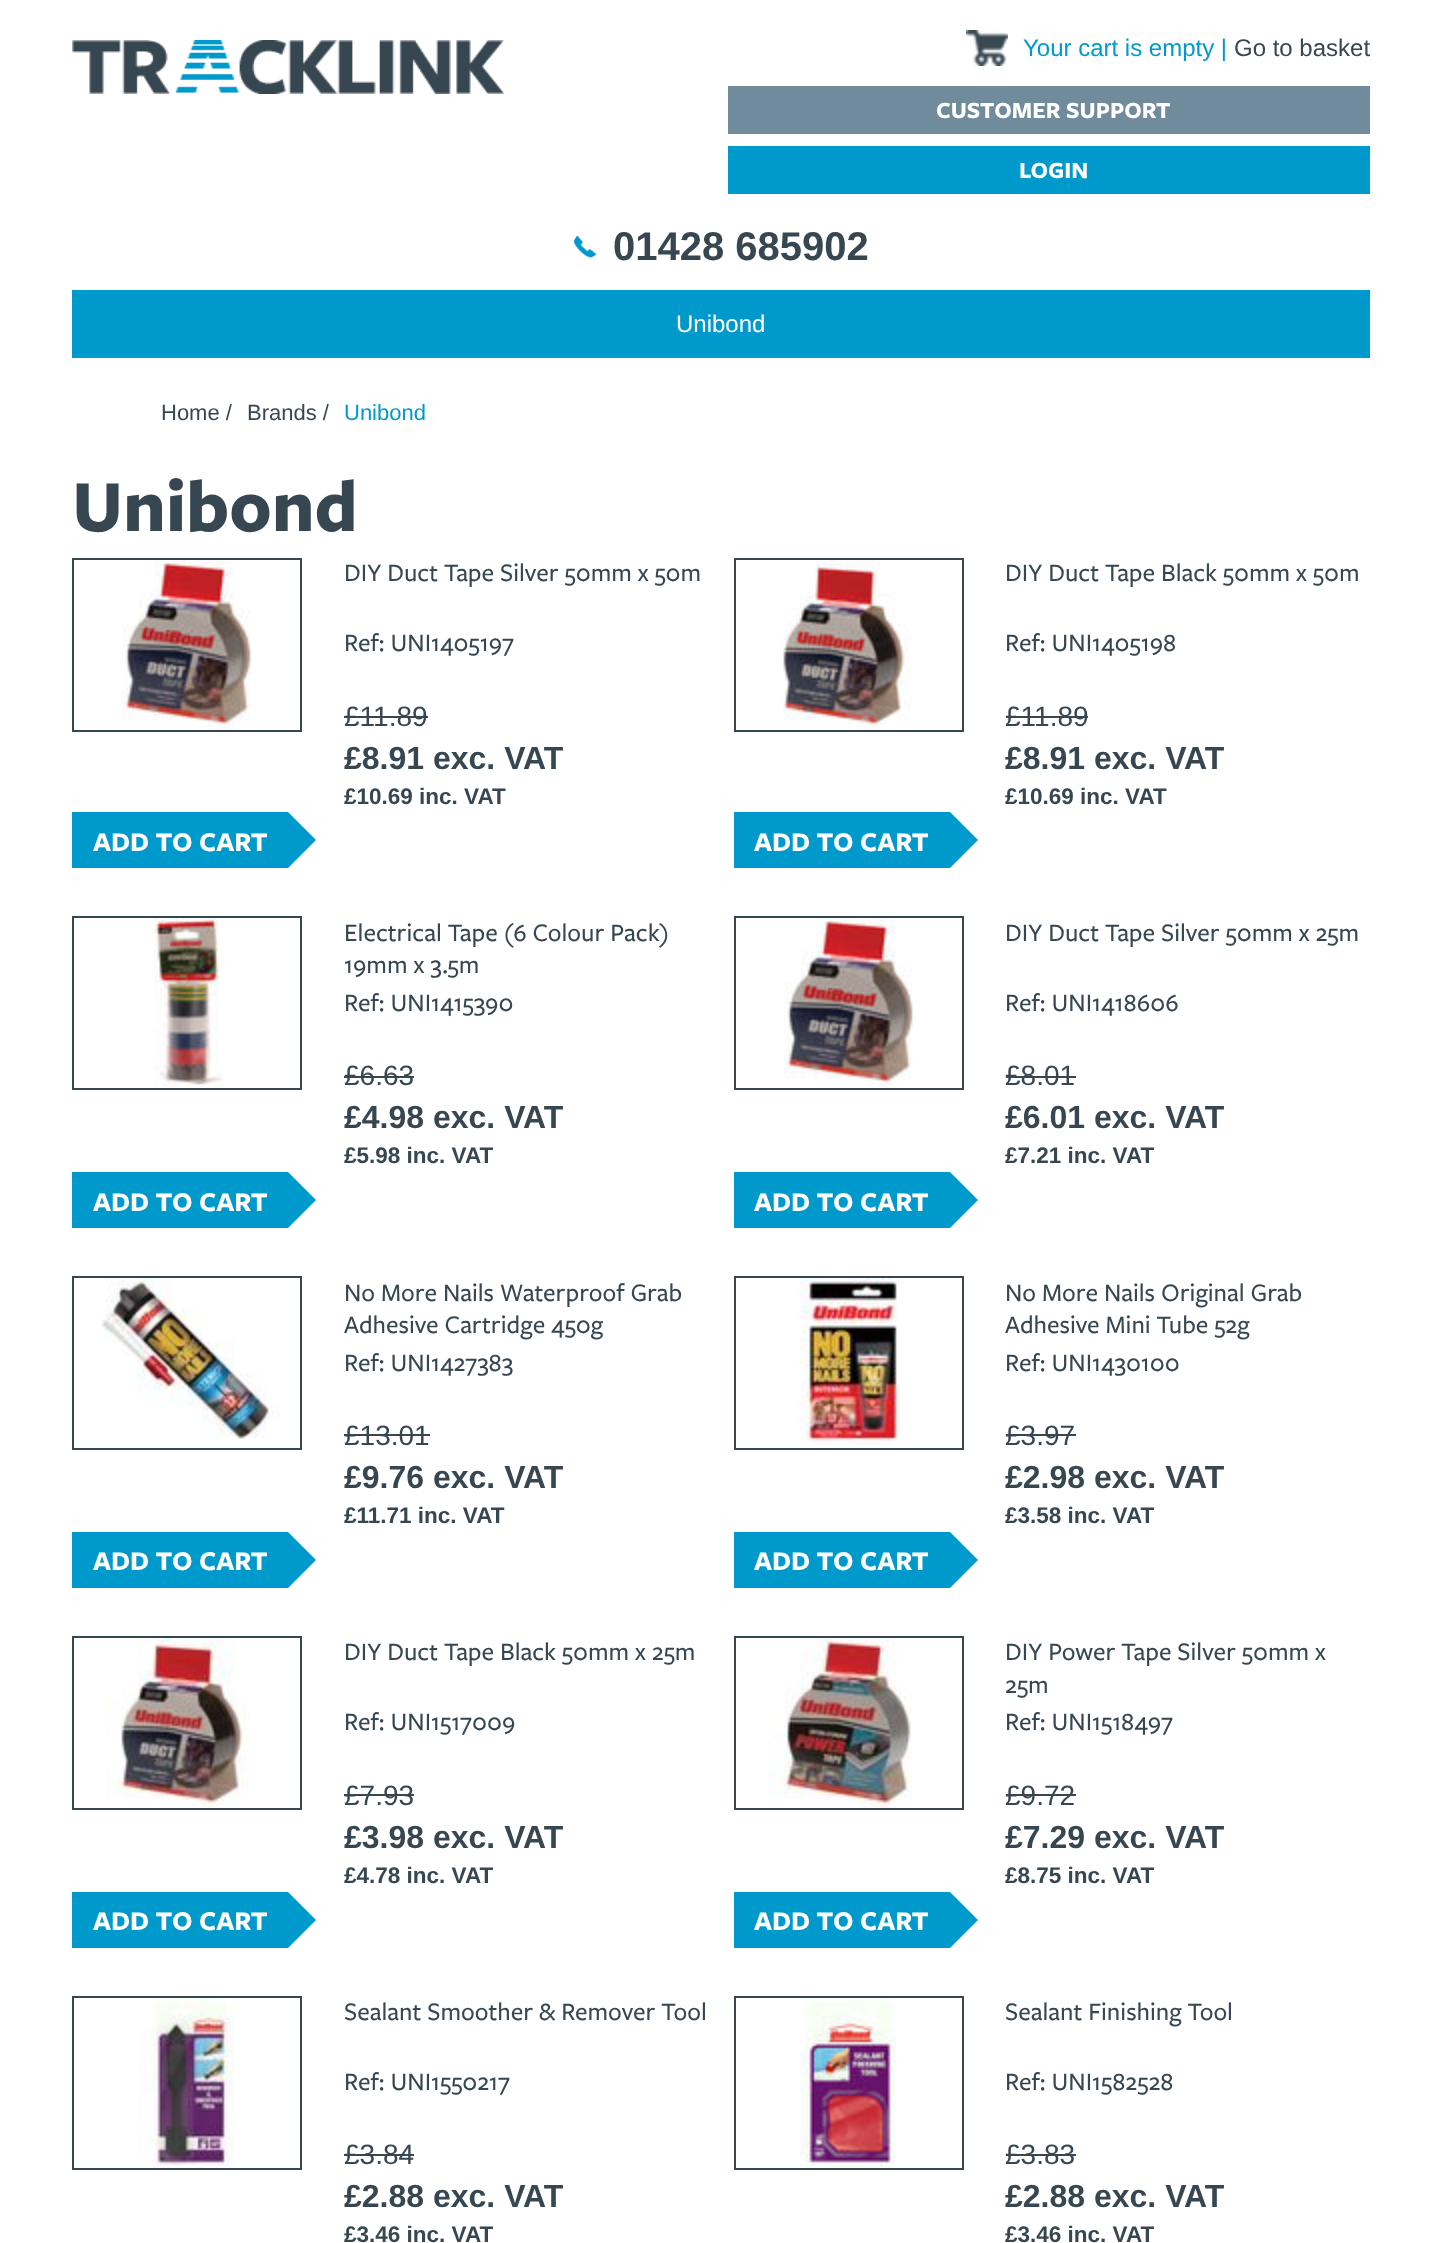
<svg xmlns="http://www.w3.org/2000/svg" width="1442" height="2243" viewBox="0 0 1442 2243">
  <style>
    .t1 { font: 24px Liberation Sans; fill: #09c; }
    .t2 { font: 24px Liberation Sans; fill: #374751; }
    .t3 { font: bold 24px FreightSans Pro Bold; fill: #fff; }
    .t4 { font: bold 40px Liberation Sans; fill: #374751; }
    .t5 { font: 24px Liberation Sans; fill: #fff; }
    .t6 { font: 22px Liberation Sans; fill: #374751; }
    .t7 { font: 22px Liberation Sans; fill: #09c; }
    .t8 { font: bold 76px FreightSans Pro Bold; fill: #374751; }
    .t9 { font: 500 26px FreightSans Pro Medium; fill: #374751; }
    .t10 { font: 28px Liberation Sans; fill: #374751; }
    .t11 { font: bold 32px Liberation Sans; fill: #374751; }
    .t12 { font: bold 22.5px Liberation Sans; fill: #374751; }
    .t13 { font: bold 28px FreightSans Pro Bold; fill: #fff; }
  </style>
  <rect width="100%" height="100%" fill="#fff"/>
  <image x="72" y="40" width="432" height="54" href="images/1.png"/>
  <image x="966" y="30" width="42" height="36" href="images/2.png"/>
  <text x="1023" y="56" class="t1">Your cart is empty |</text>
  <text x="1234" y="56" class="t2">Go to basket</text>
  <rect x="728" y="86" width="642" height="48" fill="#708b9c"/>
  <text x="936" y="118" class="t3">CUSTOMER SUPPORT</text>
  <rect x="728" y="146" width="642" height="48" fill="#09c"/>
  <text x="1019" y="178" class="t3">LOGIN</text>
  <image x="574" y="236" width="22" height="22" href="images/3.png"/>
  <text x="613" y="260" class="t4">01428 685902</text>
  <rect x="72" y="290" width="1298" height="68" fill="#09c"/>
  <text x="676" y="332" class="t5">Unibond</text>
  <text x="161" y="420" class="t6">Home /</text>
  <text x="247" y="420" class="t6">Brands /</text>
  <text x="344" y="420" class="t7">Unibond</text>
  <text x="72" y="531" class="t8">Unibond</text>
  <rect x="73" y="559" width="228" height="172" fill="none" stroke="#374751" stroke-width="2"/>
  <image x="121" y="560" width="132" height="170" href="images/4.png"/>
  <text x="344" y="581" class="t9">DIY Duct Tape Silver 50mm x 50m</text>
  <text x="344" y="651" class="t9">Ref: UNI1405197</text>
  <text x="344" y="726" class="t10">£11.89</text>
  <rect x="344" y="716" width="84" height="2" fill="#374751"/>
  <text x="344" y="769" class="t11">£8.91 exc. VAT</text>
  <text x="344" y="804" class="t12">£10.69 inc. VAT</text>
  <rect x="72" y="812" width="216" height="56" fill="#09c"/>
  <text x="93" y="851" class="t13">ADD TO CART</text>
  <path d="M288 868V812L316 840Z" fill="#09c"/>
  <rect x="735" y="559" width="228" height="172" fill="none" stroke="#374751" stroke-width="2"/>
  <image x="783" y="560" width="129" height="170" href="images/5.png"/>
  <text x="1005" y="581" class="t9">DIY Duct Tape Black 50mm x 50m</text>
  <text x="1005" y="651" class="t9">Ref: UNI1405198</text>
  <text x="1005" y="726" class="t10">£11.89</text>
  <rect x="1006" y="716" width="82" height="2" fill="#374751"/>
  <text x="1005" y="769" class="t11">£8.91 exc. VAT</text>
  <text x="1005" y="804" class="t12">£10.69 inc. VAT</text>
  <rect x="734" y="812" width="216" height="56" fill="#09c"/>
  <text x="754" y="851" class="t13">ADD TO CART</text>
  <path d="M950 868V812L978 840Z" fill="#09c"/>
  <rect x="73" y="917" width="228" height="172" fill="none" stroke="#374751" stroke-width="2"/>
  <image x="153" y="918" width="70" height="170" href="images/6.png"/>
  <text x="344" y="941" class="t9">Electrical Tape (6 Colour Pack)</text>
  <text x="344" y="973" class="t9">19mm x 3.5m</text>
  <text x="344" y="1011" class="t9">Ref: UNI1415390</text>
  <text x="344" y="1085" class="t10">£6.63</text>
  <rect x="344" y="1076" width="70" height="2" fill="#374751"/>
  <text x="344" y="1128" class="t11">£4.98 exc. VAT</text>
  <text x="344" y="1163" class="t12">£5.98 inc. VAT</text>
  <rect x="72" y="1172" width="216" height="56" fill="#09c"/>
  <text x="93" y="1211" class="t13">ADD TO CART</text>
  <path d="M288 1228V1172L316 1200Z" fill="#09c"/>
  <rect x="735" y="917" width="228" height="172" fill="none" stroke="#374751" stroke-width="2"/>
  <image x="783" y="918" width="132" height="170" href="images/4.png"/>
  <text x="1005" y="941" class="t9">DIY Duct Tape Silver 50mm x 25m</text>
  <text x="1005" y="1011" class="t9">Ref: UNI1418606</text>
  <text x="1005" y="1085" class="t10">£8.01</text>
  <rect x="1006" y="1076" width="70" height="2" fill="#374751"/>
  <text x="1005" y="1128" class="t11">£6.01 exc. VAT</text>
  <text x="1005" y="1163" class="t12">£7.21 inc. VAT</text>
  <rect x="734" y="1172" width="216" height="56" fill="#09c"/>
  <text x="754" y="1211" class="t13">ADD TO CART</text>
  <path d="M950 1228V1172L978 1200Z" fill="#09c"/>
  <rect x="73" y="1277" width="228" height="172" fill="none" stroke="#374751" stroke-width="2"/>
  <image x="101" y="1278" width="179" height="161" href="images/7.png"/>
  <text x="344" y="1301" class="t9">No More Nails Waterproof Grab</text>
  <text x="344" y="1333" class="t9">Adhesive Cartridge 450g</text>
  <text x="344" y="1371" class="t9">Ref: UNI1427383</text>
  <text x="344" y="1445" class="t10">£13.01</text>
  <rect x="344" y="1434" width="86" height="2" fill="#374751"/>
  <text x="344" y="1488" class="t11">£9.76 exc. VAT</text>
  <text x="344" y="1523" class="t12">£11.71 inc. VAT</text>
  <rect x="72" y="1532" width="216" height="56" fill="#09c"/>
  <text x="93" y="1570" class="t13">ADD TO CART</text>
  <path d="M288 1588V1532L316 1560Z" fill="#09c"/>
  <rect x="735" y="1277" width="228" height="172" fill="none" stroke="#374751" stroke-width="2"/>
  <image x="798" y="1278" width="101" height="167" href="images/8.png"/>
  <text x="1005" y="1301" class="t9">No More Nails Original Grab</text>
  <text x="1005" y="1333" class="t9">Adhesive Mini Tube 52g</text>
  <text x="1005" y="1371" class="t9">Ref: UNI1430100</text>
  <text x="1005" y="1445" class="t10">£3.97</text>
  <rect x="1006" y="1434" width="70" height="2" fill="#374751"/>
  <text x="1005" y="1488" class="t11">£2.98 exc. VAT</text>
  <text x="1005" y="1523" class="t12">£3.58 inc. VAT</text>
  <rect x="734" y="1532" width="216" height="56" fill="#09c"/>
  <text x="754" y="1570" class="t13">ADD TO CART</text>
  <path d="M950 1588V1532L978 1560Z" fill="#09c"/>
  <rect x="73" y="1637" width="228" height="172" fill="none" stroke="#374751" stroke-width="2"/>
  <image x="106" y="1638" width="144" height="170" href="images/9.png"/>
  <text x="344" y="1660" class="t9">DIY Duct Tape Black 50mm x 25m</text>
  <text x="344" y="1730" class="t9">Ref: UNI1517009</text>
  <text x="344" y="1805" class="t10">£7.93</text>
  <rect x="344" y="1794" width="70" height="2" fill="#374751"/>
  <text x="344" y="1848" class="t11">£3.98 exc. VAT</text>
  <text x="344" y="1883" class="t12">£4.78 inc. VAT</text>
  <rect x="72" y="1892" width="216" height="56" fill="#09c"/>
  <text x="93" y="1930" class="t13">ADD TO CART</text>
  <path d="M288 1948V1892L316 1920Z" fill="#09c"/>
  <rect x="735" y="1637" width="228" height="172" fill="none" stroke="#374751" stroke-width="2"/>
  <image x="768" y="1638" width="145" height="170" href="images/10.png"/>
  <text x="1005" y="1660" class="t9">DIY Power Tape Silver 50mm x</text>
  <text x="1005" y="1693" class="t9">25m</text>
  <text x="1005" y="1730" class="t9">Ref: UNI1518497</text>
  <text x="1005" y="1805" class="t10">£9.72</text>
  <rect x="1006" y="1794" width="70" height="2" fill="#374751"/>
  <text x="1005" y="1848" class="t11">£7.29 exc. VAT</text>
  <text x="1005" y="1883" class="t12">£8.75 inc. VAT</text>
  <rect x="734" y="1892" width="216" height="56" fill="#09c"/>
  <text x="754" y="1930" class="t13">ADD TO CART</text>
  <path d="M950 1948V1892L978 1920Z" fill="#09c"/>
  <rect x="73" y="1997" width="228" height="172" fill="none" stroke="#374751" stroke-width="2"/>
  <image x="138" y="1998" width="97" height="170" href="images/11.png"/>
  <text x="344" y="2020" class="t9">Sealant Smoother &amp; Remover Tool</text>
  <text x="344" y="2090" class="t9">Ref: UNI1550217</text>
  <text x="344" y="2164" class="t10">£3.84</text>
  <rect x="344" y="2154" width="70" height="2" fill="#374751"/>
  <text x="344" y="2207" class="t11">£2.88 exc. VAT</text>
  <text x="344" y="2242" class="t12">£3.46 inc. VAT</text>
  <rect x="735" y="1997" width="228" height="172" fill="none" stroke="#374751" stroke-width="2"/>
  <image x="800" y="1998" width="96" height="170" href="images/12.png"/>
  <text x="1005" y="2020" class="t9">Sealant Finishing Tool</text>
  <text x="1005" y="2090" class="t9">Ref: UNI1582528</text>
  <text x="1005" y="2164" class="t10">£3.83</text>
  <rect x="1006" y="2154" width="70" height="2" fill="#374751"/>
  <text x="1005" y="2207" class="t11">£2.88 exc. VAT</text>
  <text x="1005" y="2242" class="t12">£3.46 inc. VAT</text>
</svg>
